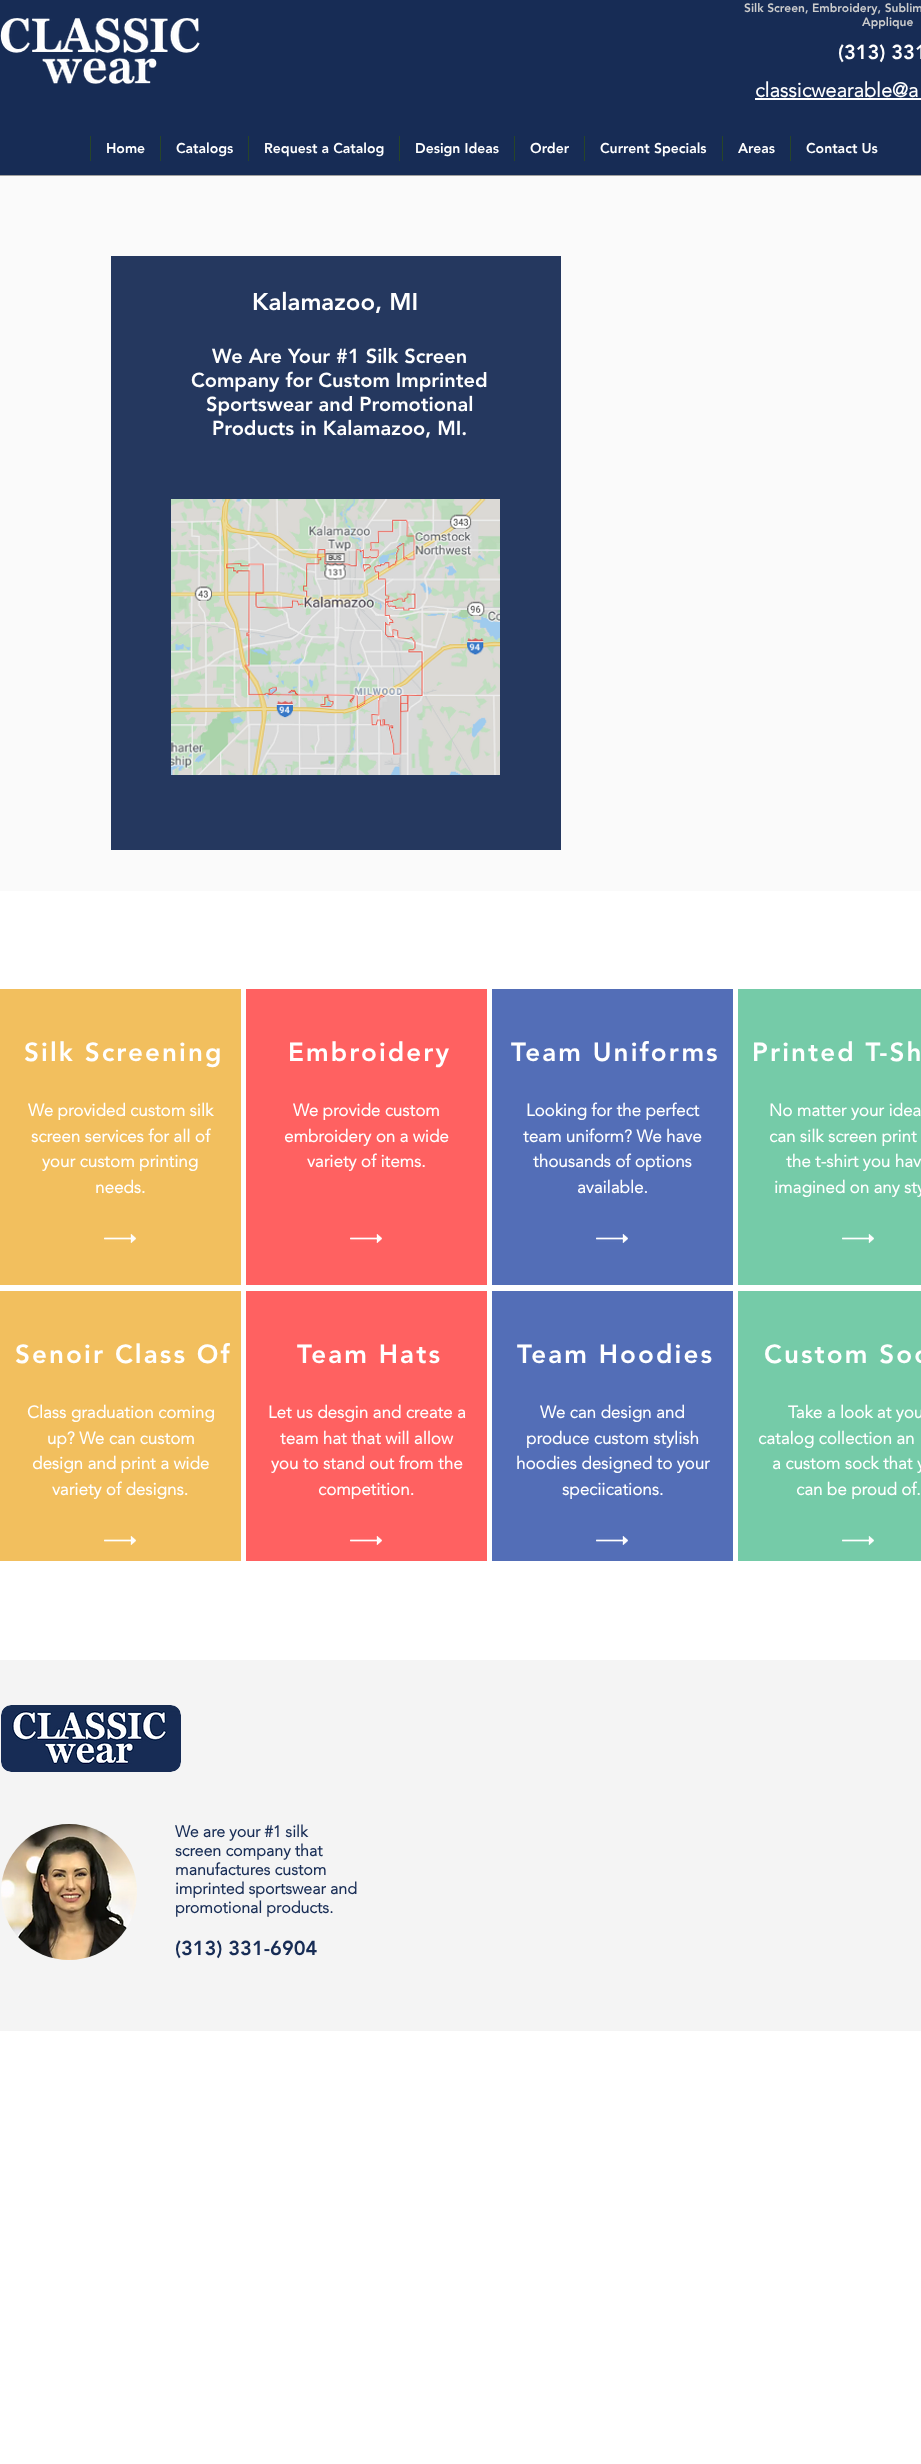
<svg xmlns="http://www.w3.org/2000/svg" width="921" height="2464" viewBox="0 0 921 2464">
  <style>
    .t1 { font: 900 12px 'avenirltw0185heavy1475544'; fill: #ccc; }
    .t2 { font: 900 20px 'avenirltw0185heavy1475544'; fill: #fff; }
    .t3 { font: bold 20px 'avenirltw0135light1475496'; fill: #fff; }
    .t4 { font: 900 14px 'avenirltw0185heavy1475544'; fill: #fff; }
    .t5 { font: 900 24px 'avenirltw0185heavy1475544'; fill: #fff; }
    .t6 { font: 900 26px 'avenirltw0185heavy1475544'; letter-spacing: 2.1px; fill: #fff; }
    .t7 { font: bold 17px 'avenirltw0135light1475496'; fill: #fff; }
    .t8 { font: bold 16px 'avenirltw0135light1475496'; fill: #172c55; }
    .t9 { font: 900 20px 'avenirltw0185heavy1475544'; fill: #172c55; }
  </style>
  <rect width="100%" height="100%" fill="#fff"/>
  <rect x="0" y="0" width="921" height="175" fill="#172c55"/>
  <rect x="0" y="175" width="921" height="1" fill="#a0a09f"/>
  <image x="0" y="18" width="200" height="66" href="images/1.png"/>
  <text x="744" y="12" class="t1">Silk Screen, Embroidery, Sublim</text>
  <text x="862" y="26" class="t1">Applique</text>
  <text x="838" y="59" class="t2">(313) 331</text>
  <text x="755" y="97" class="t3">classicwearable@a</text>
  <rect x="755" y="98" width="166" height="2" fill="#fff"/>
  <rect x="90" y="136" width="1" height="25" fill="#274528"/>
  <text x="106" y="153" class="t4">Home</text>
  <rect x="160" y="136" width="1" height="25" fill="#274528"/>
  <text x="176" y="153" class="t4">Catalogs</text>
  <rect x="248" y="136" width="1" height="25" fill="#274528"/>
  <text x="264" y="153" class="t4">Request a Catalog</text>
  <rect x="399" y="136" width="1" height="25" fill="#274528"/>
  <text x="415" y="153" class="t4">Design Ideas</text>
  <rect x="514" y="136" width="1" height="25" fill="#274528"/>
  <text x="530" y="153" class="t4">Order</text>
  <rect x="584" y="136" width="1" height="25" fill="#274528"/>
  <text x="600" y="153" class="t4">Current Specials</text>
  <rect x="722" y="136" width="1" height="25" fill="#274528"/>
  <text x="738" y="153" class="t4">Areas</text>
  <rect x="790" y="136" width="1" height="25" fill="#274528"/>
  <text x="806" y="153" class="t4">Contact Us</text>
  <rect x="0" y="176" width="921" height="715" fill="#fafafa"/>
  <rect x="111" y="256" width="450" height="594" fill="#25385f"/>
  <text x="252" y="310" class="t5">Kalamazoo, MI</text>
  <text x="212" y="363" class="t2">We Are Your #1 Silk Screen</text>
  <text x="191" y="387" class="t2">Company for Custom Imprinted</text>
  <text x="206" y="411" class="t2">Sportswear and Promotional</text>
  <text x="212" y="435" class="t2">Products in Kalamazoo, MI.</text>
  <image x="171" y="499" width="329" height="276" href="images/2.png"/>
  <rect x="0" y="989" width="241" height="296" fill="#f2bf5e"/>
  <text x="24" y="1061" class="t6">Silk Screening</text>
  <text x="28" y="1116" class="t7">We provided custom silk</text>
  <text x="31" y="1142" class="t7">screen services for all of</text>
  <text x="42" y="1167" class="t7">your custom printing</text>
  <text x="95" y="1193" class="t7">needs.</text>
  <image x="104" y="1234" width="32" height="9" href="images/3.png"/>
  <rect x="246" y="989" width="241" height="296" fill="#ff6161"/>
  <text x="288" y="1061" class="t6">Embroidery</text>
  <text x="293" y="1116" class="t7">We provide custom</text>
  <text x="284" y="1142" class="t7">embroidery on a wide</text>
  <text x="307" y="1167" class="t7">variety of items.</text>
  <image x="350" y="1234" width="32" height="9" href="images/4.png"/>
  <rect x="492" y="989" width="241" height="296" fill="#536eb7"/>
  <text x="511" y="1061" class="t6">Team Uniforms</text>
  <text x="526" y="1116" class="t7">Looking for the perfect</text>
  <text x="523" y="1142" class="t7">team uniform? We have</text>
  <text x="533" y="1167" class="t7">thousands of options</text>
  <text x="577" y="1193" class="t7">available.</text>
  <image x="596" y="1234" width="32" height="9" href="images/5.png"/>
  <rect x="738" y="989" width="183" height="296" fill="#75cba8"/>
  <text x="752" y="1061" class="t6">Printed T-Sh</text>
  <text x="769" y="1116" class="t7">No matter your idea</text>
  <text x="769" y="1142" class="t7">can silk screen print</text>
  <text x="786" y="1167" class="t7">the t-shirt you hav</text>
  <text x="774" y="1193" class="t7">imagined on any sty</text>
  <image x="842" y="1234" width="32" height="9" href="images/6.png"/>
  <rect x="0" y="1291" width="241" height="270" fill="#f2bf5e"/>
  <text x="15" y="1363" class="t6">Senoir Class Of</text>
  <text x="27" y="1418" class="t7">Class graduation coming</text>
  <text x="47" y="1444" class="t7">up? We can custom</text>
  <text x="32" y="1469" class="t7">design and print a wide</text>
  <text x="52" y="1495" class="t7">variety of designs.</text>
  <image x="104" y="1536" width="32" height="9" href="images/3.png"/>
  <rect x="246" y="1291" width="241" height="270" fill="#ff6161"/>
  <text x="297" y="1363" class="t6">Team Hats</text>
  <text x="268" y="1418" class="t7">Let us desgin and create a</text>
  <text x="280" y="1444" class="t7">team hat that will allow</text>
  <text x="271" y="1469" class="t7">you to stand out from the</text>
  <text x="318" y="1495" class="t7">competition.</text>
  <image x="350" y="1536" width="32" height="9" href="images/4.png"/>
  <rect x="492" y="1291" width="241" height="270" fill="#536eb7"/>
  <text x="517" y="1363" class="t6">Team Hoodies</text>
  <text x="540" y="1418" class="t7">We can design and</text>
  <text x="526" y="1444" class="t7">produce custom stylish</text>
  <text x="516" y="1469" class="t7">hoodies designed to your</text>
  <text x="562" y="1495" class="t7">speciications.</text>
  <image x="596" y="1536" width="32" height="9" href="images/5.png"/>
  <rect x="738" y="1291" width="183" height="270" fill="#75cba8"/>
  <text x="764" y="1363" class="t6">Custom Soc</text>
  <text x="788" y="1418" class="t7">Take a look at you</text>
  <text x="758" y="1444" class="t7">catalog collection an</text>
  <text x="772" y="1469" class="t7">a custom sock that y</text>
  <text x="796" y="1495" class="t7">can be proud of.</text>
  <image x="842" y="1536" width="32" height="9" href="images/6.png"/>
  <rect x="0" y="1660" width="921" height="371" fill="#f4f4f4"/>
  <image x="1" y="1705" width="180" height="67" href="images/7.png"/>
  <image x="1" y="1824" width="136" height="136" href="images/8.png"/>
  <text x="175" y="1837" class="t8">We are your #1 silk</text>
  <text x="175" y="1856" class="t8">screen company that</text>
  <text x="175" y="1875" class="t8">manufactures custom</text>
  <text x="175" y="1894" class="t8">imprinted sportswear and</text>
  <text x="175" y="1913" class="t8">promotional products.</text>
  <text x="175" y="1955" class="t9">(313) 331-6904</text>
</svg>
